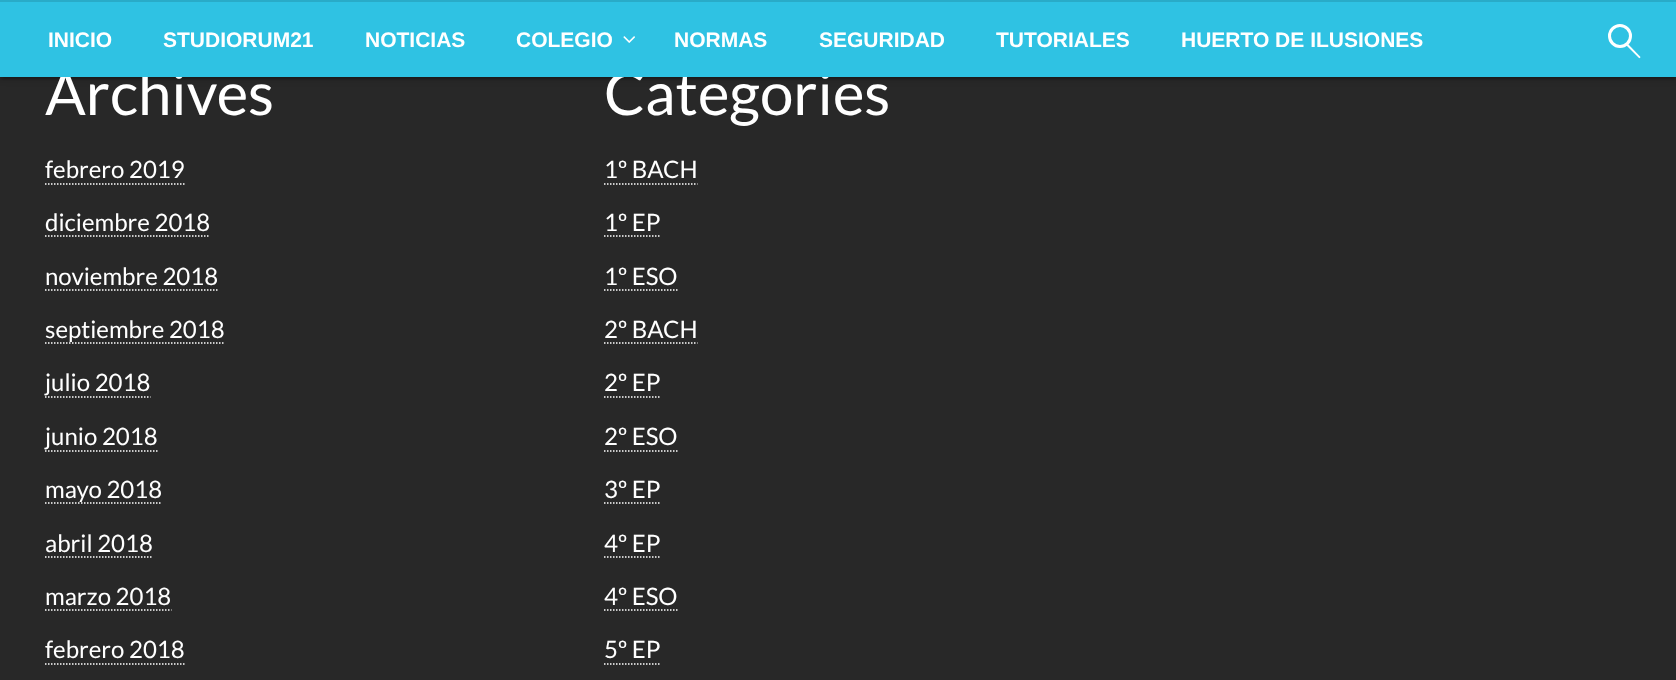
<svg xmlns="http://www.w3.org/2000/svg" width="1676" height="680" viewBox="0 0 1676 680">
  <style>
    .t1 { font: 60px Lato; fill: #fff; }
    .t2 { font: bold 21px Liberation Sans; fill: #fff; }
    .t3 { font: 24px Lato; fill: #fff; }
  </style>
  <rect width="100%" height="100%" fill="#282828"/>
  <rect x="0" y="2" width="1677" height="76" fill="#0000001f" filter="blur(4px)"/>
  <rect x="3" y="8" width="1671" height="70" fill="#00000033" filter="blur(1px)"/>
  <rect x="0" y="3" width="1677" height="77" fill="#00000024" filter="blur(1.5px)"/>
  <text x="45" y="115" class="t1">Archives</text>
  <text x="604" y="115" class="t1">Categories</text>
  <rect x="0" y="2" width="1676" height="75" fill="#2fc2e3"/>
  <rect x="0" y="0" width="1676" height="2" fill="#29abc8"/>
  <text x="48" y="47" class="t2">INICIO</text>
  <text x="163" y="47" class="t2">STUDIORUM21</text>
  <text x="365" y="47" class="t2">NOTICIAS</text>
  <text x="516" y="47" class="t2">COLEGIO</text>
  <image x="623" y="36" width="12" height="7" href="images/1.png"/>
  <text x="674" y="47" class="t2">NORMAS</text>
  <text x="819" y="47" class="t2">SEGURIDAD</text>
  <text x="996" y="47" class="t2">TUTORIALES</text>
  <text x="1181" y="47" class="t2">HUERTO DE ILUSIONES</text>
  <circle cx="1620" cy="36" r="10.5" fill="none" stroke="#fff" stroke-width="3"/>
  <path d="M1628 44L1640.5 57C1640.5 57.5 1639.5 58.5 1639 58L1626.5 45.5C1625.5 44.5 1627 43 1628 44Z" fill="#fff"/>
  <text x="45" y="178" class="t3">febrero 2019</text>
  <path d="M45 184H184.5" fill="none" stroke="#fff" stroke-width="1.5" stroke-dasharray="1.5 1.5"/>
  <text x="45" y="231" class="t3">diciembre 2018</text>
  <path d="M45 236H210" fill="none" stroke="#fff" stroke-width="1.5" stroke-dasharray="1.5 1.5"/>
  <text x="45" y="285" class="t3">noviembre 2018</text>
  <path d="M45 290H218" fill="none" stroke="#fff" stroke-width="1.5" stroke-dasharray="1.5 1.5"/>
  <path d="M45 343H224.5" fill="none" stroke="#fff" stroke-width="1.5" stroke-dasharray="1.5 1.5"/>
  <text x="45" y="338" class="t3">septiembre 2018</text>
  <text x="45" y="391" class="t3">julio 2018</text>
  <path d="M45 397H150.5" fill="none" stroke="#fff" stroke-width="1.5" stroke-dasharray="1.5 1.5"/>
  <text x="45" y="445" class="t3">junio 2018</text>
  <path d="M45 451H157.5" fill="none" stroke="#fff" stroke-width="1.5" stroke-dasharray="1.5 1.5"/>
  <path d="M45 503H162" fill="none" stroke="#fff" stroke-width="1.5" stroke-dasharray="1.5 1.5"/>
  <text x="45" y="498" class="t3">mayo 2018</text>
  <text x="45" y="552" class="t3">abril 2018</text>
  <path d="M45 557H153" fill="none" stroke="#fff" stroke-width="1.5" stroke-dasharray="1.5 1.5"/>
  <text x="45" y="605" class="t3">marzo 2018</text>
  <path d="M45 610H171.5" fill="none" stroke="#fff" stroke-width="1.5" stroke-dasharray="1.5 1.5"/>
  <text x="45" y="658" class="t3">febrero 2018</text>
  <path d="M45 664H184.5" fill="none" stroke="#fff" stroke-width="1.5" stroke-dasharray="1.5 1.5"/>
  <text x="604" y="178" class="t3">1º BACH</text>
  <path d="M604 184H697.5" fill="none" stroke="#fff" stroke-width="1.5" stroke-dasharray="1.5 1.5"/>
  <text x="604" y="231" class="t3">1º EP</text>
  <path d="M604 236H660.5" fill="none" stroke="#fff" stroke-width="1.5" stroke-dasharray="1.5 1.5"/>
  <text x="604" y="285" class="t3">1º ESO</text>
  <path d="M604 290H677.5" fill="none" stroke="#fff" stroke-width="1.5" stroke-dasharray="1.5 1.5"/>
  <text x="604" y="338" class="t3">2º BACH</text>
  <path d="M604 343H697.5" fill="none" stroke="#fff" stroke-width="1.5" stroke-dasharray="1.5 1.5"/>
  <text x="604" y="391" class="t3">2º EP</text>
  <path d="M604 397H660.5" fill="none" stroke="#fff" stroke-width="1.5" stroke-dasharray="1.5 1.5"/>
  <text x="604" y="445" class="t3">2º ESO</text>
  <path d="M604 451H677.5" fill="none" stroke="#fff" stroke-width="1.5" stroke-dasharray="1.5 1.5"/>
  <text x="604" y="498" class="t3">3º EP</text>
  <path d="M604 503H660.5" fill="none" stroke="#fff" stroke-width="1.5" stroke-dasharray="1.5 1.5"/>
  <text x="604" y="552" class="t3">4º EP</text>
  <path d="M604 557H660.5" fill="none" stroke="#fff" stroke-width="1.5" stroke-dasharray="1.5 1.5"/>
  <text x="604" y="605" class="t3">4º ESO</text>
  <path d="M604 610H677.5" fill="none" stroke="#fff" stroke-width="1.5" stroke-dasharray="1.5 1.5"/>
  <text x="604" y="658" class="t3">5º EP</text>
  <path d="M604 664H660.5" fill="none" stroke="#fff" stroke-width="1.5" stroke-dasharray="1.5 1.5"/>
</svg>
